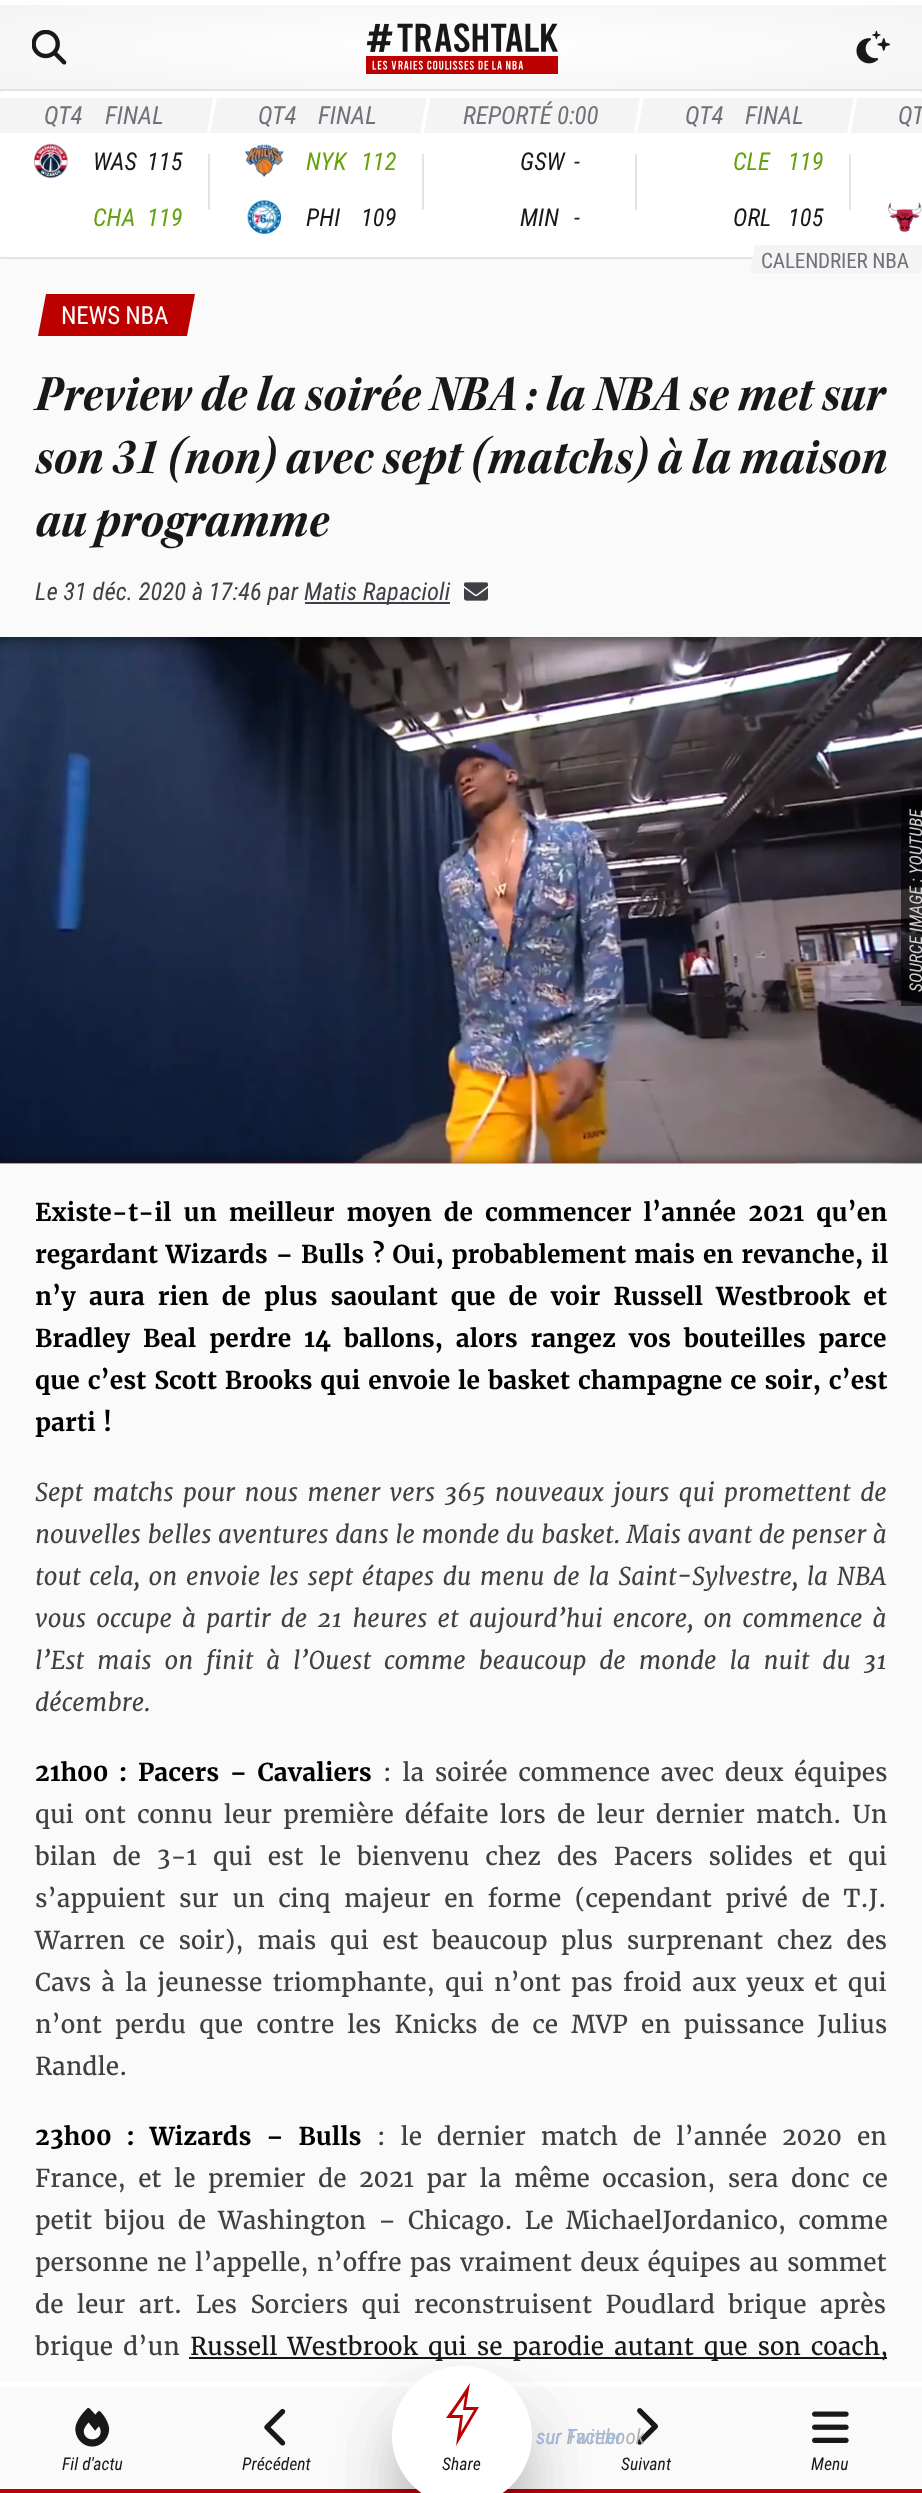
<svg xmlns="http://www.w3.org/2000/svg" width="922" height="2493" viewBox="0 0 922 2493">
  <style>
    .t1 { font: italic 25px Roboto Condensed; letter-spacing: -0.25px; fill: #71717a; }
    .t2 { font: italic 25px Roboto Condensed; fill: #71717a; }
    .t3 { font: italic 24.5px Roboto Condensed; fill: #18181b; }
    .t4 { font: italic 24.5px Roboto Condensed; fill: #65a30d; }
    .t5 { font: italic 25px Roboto Condensed; letter-spacing: -0.2px; fill: #71717a; }
    .t6 { font: 21.25px Roboto Condensed; letter-spacing: -0.2px; fill: #71717a; }
    .t7 { font: 25px Roboto Condensed; letter-spacing: -0.25px; fill: #fff; }
    .t8 { font: italic bold 52.5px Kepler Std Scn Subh; fill: #18181b; }
    .t9 { font: italic 24.5px Roboto Condensed; fill: #3f3f46; }
    .t10 { font: italic 17.5px Roboto Condensed; fill: #d0d0d0; }
    .t11 { font: bold 24.5px Merriweather; fill: #000; }
    .t12 { font: italic 24.5px Merriweather; fill: #404040; }
    .t13 { font: 24.5px Merriweather; fill: #404040; }
    .t14 { font: 24.5px Merriweather; fill: #18181b; }
    .t15 { font: italic 17.5px Roboto Condensed; fill: #18181b; }
    .t16 { font: italic 21px Roboto Condensed; fill: #b1b1b2; }
    .t17 { font: italic 21px Roboto Condensed; fill: #a1bde3; }
  </style>
  <defs>
    <radialGradient id="g1" gradientUnits="userSpaceOnUse" cx="0" cy="0" r="1" gradientTransform="matrix(652 0 0 59 461 47)"><stop offset="0" stop-color="#fff"/><stop offset="1" stop-color="#f4f4f5"/></radialGradient>
  </defs>
  <rect width="100%" height="100%" fill="#fff"/>
  <rect x="0" y="5" width="922" height="84" fill="url(#g1)"/>
  <rect x="0" y="89" width="922" height="2" fill="#e4e4e7"/>
  <image x="366" y="23" width="192" height="51" href="images/1.png"/>
  <image x="32" y="30" width="35" height="35" href="images/2.png"/>
  <image x="856" y="30" width="34" height="34" href="images/3.png"/>
  <rect x="0" y="91" width="922" height="166" fill="#f4f4f5"/>
  <rect x="0" y="257" width="753" height="2" fill="#e4e4e7"/>
  <rect x="0" y="91" width="922" height="166" rx="4" fill="#fff"/>
  <path d="M3 98H213L207 133H-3Z" fill="#f4f4f5"/>
  <rect x="0" y="98" width="3" height="16" fill="#f4f4f5"/>
  <text x="44" y="124" class="t1">QT4</text>
  <text x="105" y="124" class="t2">FINAL</text>
  <image x="33" y="143" width="36" height="36" href="images/4.png"/>
  <text x="93" y="170" class="t3">WAS</text>
  <text x="147" y="170" class="t3">115</text>
  <rect x="208" y="154" width="2" height="56" fill="#e4e4e7"/>
  <text x="93" y="226" class="t4">CHA</text>
  <text x="147" y="226" class="t4">119</text>
  <path d="M217 98H427L420 133H210Z" fill="#f4f4f5"/>
  <text x="258" y="124" class="t1">QT4</text>
  <text x="318" y="124" class="t2">FINAL</text>
  <image x="245" y="144" width="39" height="33" href="images/5.png"/>
  <text x="306" y="170" class="t4">NYK</text>
  <text x="361" y="170" class="t4">112</text>
  <rect x="422" y="154" width="2" height="56" fill="#e4e4e7"/>
  <image x="247" y="199" width="35" height="36" href="images/6.png"/>
  <text x="306" y="226" class="t3">PHI</text>
  <text x="361" y="226" class="t3">109</text>
  <path d="M430 98H640L634 133H424Z" fill="#f4f4f5"/>
  <text x="463" y="124" class="t1">REPORTÉ</text>
  <text x="557" y="124" class="t5">0:00</text>
  <text x="520" y="170" class="t3">GSW</text>
  <text x="574" y="170" class="t3">-</text>
  <rect x="635" y="154" width="2" height="56" fill="#e4e4e7"/>
  <text x="520" y="226" class="t3">MIN</text>
  <text x="574" y="226" class="t3">-</text>
  <path d="M644 98H854L847 133H637Z" fill="#f4f4f5"/>
  <text x="685" y="124" class="t1">QT4</text>
  <text x="745" y="124" class="t2">FINAL</text>
  <text x="733" y="170" class="t4">CLE</text>
  <text x="788" y="170" class="t4">119</text>
  <rect x="849" y="154" width="2" height="56" fill="#e4e4e7"/>
  <text x="733" y="226" class="t3">ORL</text>
  <text x="788" y="226" class="t3">105</text>
  <path d="M857 98H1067L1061 133H851Z" fill="#f4f4f5"/>
  <text x="898" y="124" class="t1">QT</text>
  <image x="888" y="202" width="34" height="30" href="images/7.png"/>
  <rect x="0" y="259" width="922" height="2123" fill="#fafafa"/>
  <path d="M755 245H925L920 273H750Z" fill="#f4f4f5"/>
  <text x="761" y="268" class="t6">CALENDRIER NBA</text>
  <path d="M46 294H195L187 336H38Z" fill="#bc0000"/>
  <text x="61" y="324" class="t7">NEWS NBA</text>
  <text x="35" y="410" class="t8">Preview de la soirée NBA : la NBA se met sur</text>
  <text x="35" y="473" class="t8">son 31 (non) avec sept (matchs) à la maison</text>
  <text x="35" y="536" class="t8">au programme</text>
  <text x="35" y="600" class="t9">Le 31 déc. 2020 à 17:46 par</text>
  <rect x="305" y="602" width="145" height="2" fill="#3f3f46"/>
  <text x="304" y="600" class="t9">Matis Rapacioli</text>
  <image x="464" y="582" width="24" height="19" href="images/8.png"/>
  <rect x="0" y="1163" width="922" height="1" fill="#f4f4f5"/>
  <image x="0" y="637" width="922" height="527" href="images/9.png"/>
  <rect x="901" y="795" width="21" height="211" fill="#00000099"/>
  <text x="922" y="992" transform="rotate(-90 922 992)" class="t10">SOURCE IMAGE : YOUTUBE</text>
  <text x="35" y="1221" word-spacing="4.5" class="t11">Existe-t-il un meilleur moyen de commencer l’année 2021 qu’en</text>
  <text x="35" y="1263" word-spacing="0.25" class="t11">regardant Wizards – Bulls ? Oui, probablement mais en revanche, il</text>
  <text x="35" y="1305" word-spacing="5.4" class="t11">n’y aura rien de plus saoulant que de voir Russell Westbrook et</text>
  <text x="35" y="1347" word-spacing="5.25" class="t11">Bradley Beal perdre 14 ballons, alors rangez vos bouteilles parce</text>
  <text x="35" y="1389" word-spacing="0.25" class="t11">que c’est Scott Brooks qui envoie le basket champagne ce soir, c’est</text>
  <text x="35" y="1431" class="t11">parti !</text>
  <text x="35" y="1501" word-spacing="3.5" class="t12">Sept matchs pour nous mener vers 365 nouveaux jours qui promettent de</text>
  <text x="35" y="1543" word-spacing="0.6" class="t12">nouvelles belles aventures dans le monde du basket. Mais avant de penser à</text>
  <text x="35" y="1585" word-spacing="2.75" class="t12">tout cela, on envoie les sept étapes du menu de la Saint-Sylvestre, la NBA</text>
  <text x="35" y="1627" word-spacing="4.25" class="t12">vous occupe à partir de 21 heures et aujourd’hui encore, on commence à</text>
  <text x="35" y="1669" word-spacing="6.9" class="t12">l’Est mais on finit à l’Ouest comme beaucoup de monde la nuit du 31</text>
  <text x="35" y="1711" class="t12">décembre.</text>
  <text x="35" y="1781" word-spacing="2.75" class="t11">21h00 : Pacers – Cavaliers</text>
  <text x="383" y="1781" word-spacing="2.75" class="t13">: la soirée commence avec deux équipes</text>
  <text x="35" y="1823" word-spacing="3.1" class="t13">qui ont connu leur première défaite lors de leur dernier match. Un</text>
  <text x="35" y="1865" word-spacing="8" class="t13">bilan de 3-1 qui est le bienvenu chez des Pacers solides et qui</text>
  <text x="35" y="1907" word-spacing="5.75" class="t13">s’appuient sur un cinq majeur en forme (cependant privé de T.J.</text>
  <text x="35" y="1949" word-spacing="5.75" class="t13">Warren ce soir), mais qui est beaucoup plus surprenant chez des</text>
  <text x="35" y="1991" word-spacing="2.25" class="t13">Cavs à la jeunesse triomphante, qui n’ont pas froid aux yeux et qui</text>
  <text x="35" y="2033" word-spacing="5.25" class="t13">n’ont perdu que contre les Knicks de ce MVP en puissance Julius</text>
  <text x="35" y="2075" class="t13">Randle.</text>
  <text x="35" y="2145" word-spacing="7" class="t11">23h00 : Wizards – Bulls</text>
  <text x="377" y="2145" word-spacing="7" class="t13">: le dernier match de l’année 2020 en</text>
  <text x="35" y="2187" word-spacing="4.6" class="t13">France, et le premier de 2021 par la même occasion, sera donc ce</text>
  <text x="35" y="2229" word-spacing="4.25" class="t13">petit bijou de Washington – Chicago. Le MichaelJordanico, comme</text>
  <text x="35" y="2271" word-spacing="0.5" class="t13">personne ne l’appelle, n’offre pas vraiment deux équipes au sommet</text>
  <text x="35" y="2313" word-spacing="5.5" class="t13">de leur art. Les Sorciers qui reconstruisent Poudlard brique après</text>
  <text x="35" y="2355" word-spacing="2" class="t13">brique d’un</text>
  <rect x="189" y="2357" width="698" height="2" fill="#171717"/>
  <text x="190" y="2355" word-spacing="2" class="t14">Russell Westbrook qui se parodie autant que son coach,</text>
  <rect x="0" y="2387" width="922" height="102" fill="#fafafa"/>
  <rect x="0" y="2489" width="922" height="4" fill="#bc0000"/>
  <image x="75" y="2407" width="35" height="40" href="images/10.png"/>
  <text x="62" y="2470" class="t15">Fil d'actu</text>
  <image x="264" y="2408" width="22" height="38" href="images/11.png"/>
  <text x="242" y="2470" class="t15">Précédent</text>
  <rect x="427" y="2445" width="70" height="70" rx="35" fill="#00000040" filter="blur(44px)"/>
  <rect x="427" y="2445" width="70" height="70" rx="35" fill="#00000040" filter="blur(44px)"/>
  <image x="637" y="2408" width="21" height="37" href="images/12.png"/>
  <text x="536" y="2444" class="t16">sur Facebook</text>
  <rect x="427" y="2445" width="70" height="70" rx="35" fill="#00000040" filter="blur(44px)"/>
  <text x="536" y="2444" class="t17">sur Twitter</text>
  <rect x="413" y="2431" width="98" height="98" rx="49" fill="#00000040" filter="blur(44px)"/>
  <circle cx="462" cy="2436" r="70" fill="#fff"/>
  <path d="M458 2401L446 2418H460L456 2446L479 2407H466L470 2383ZM464 2403L463 2410H474L461 2432L463 2415H452L465 2396Z" fill="#bc0000" fill-rule="evenodd"/>
  <text x="442" y="2470" class="t15">Share</text>
  <text x="621" y="2470" class="t15">Suivant</text>
  <image x="812" y="2411" width="37" height="32" href="images/13.png"/>
  <text x="811" y="2470" class="t15">Menu</text>
</svg>
